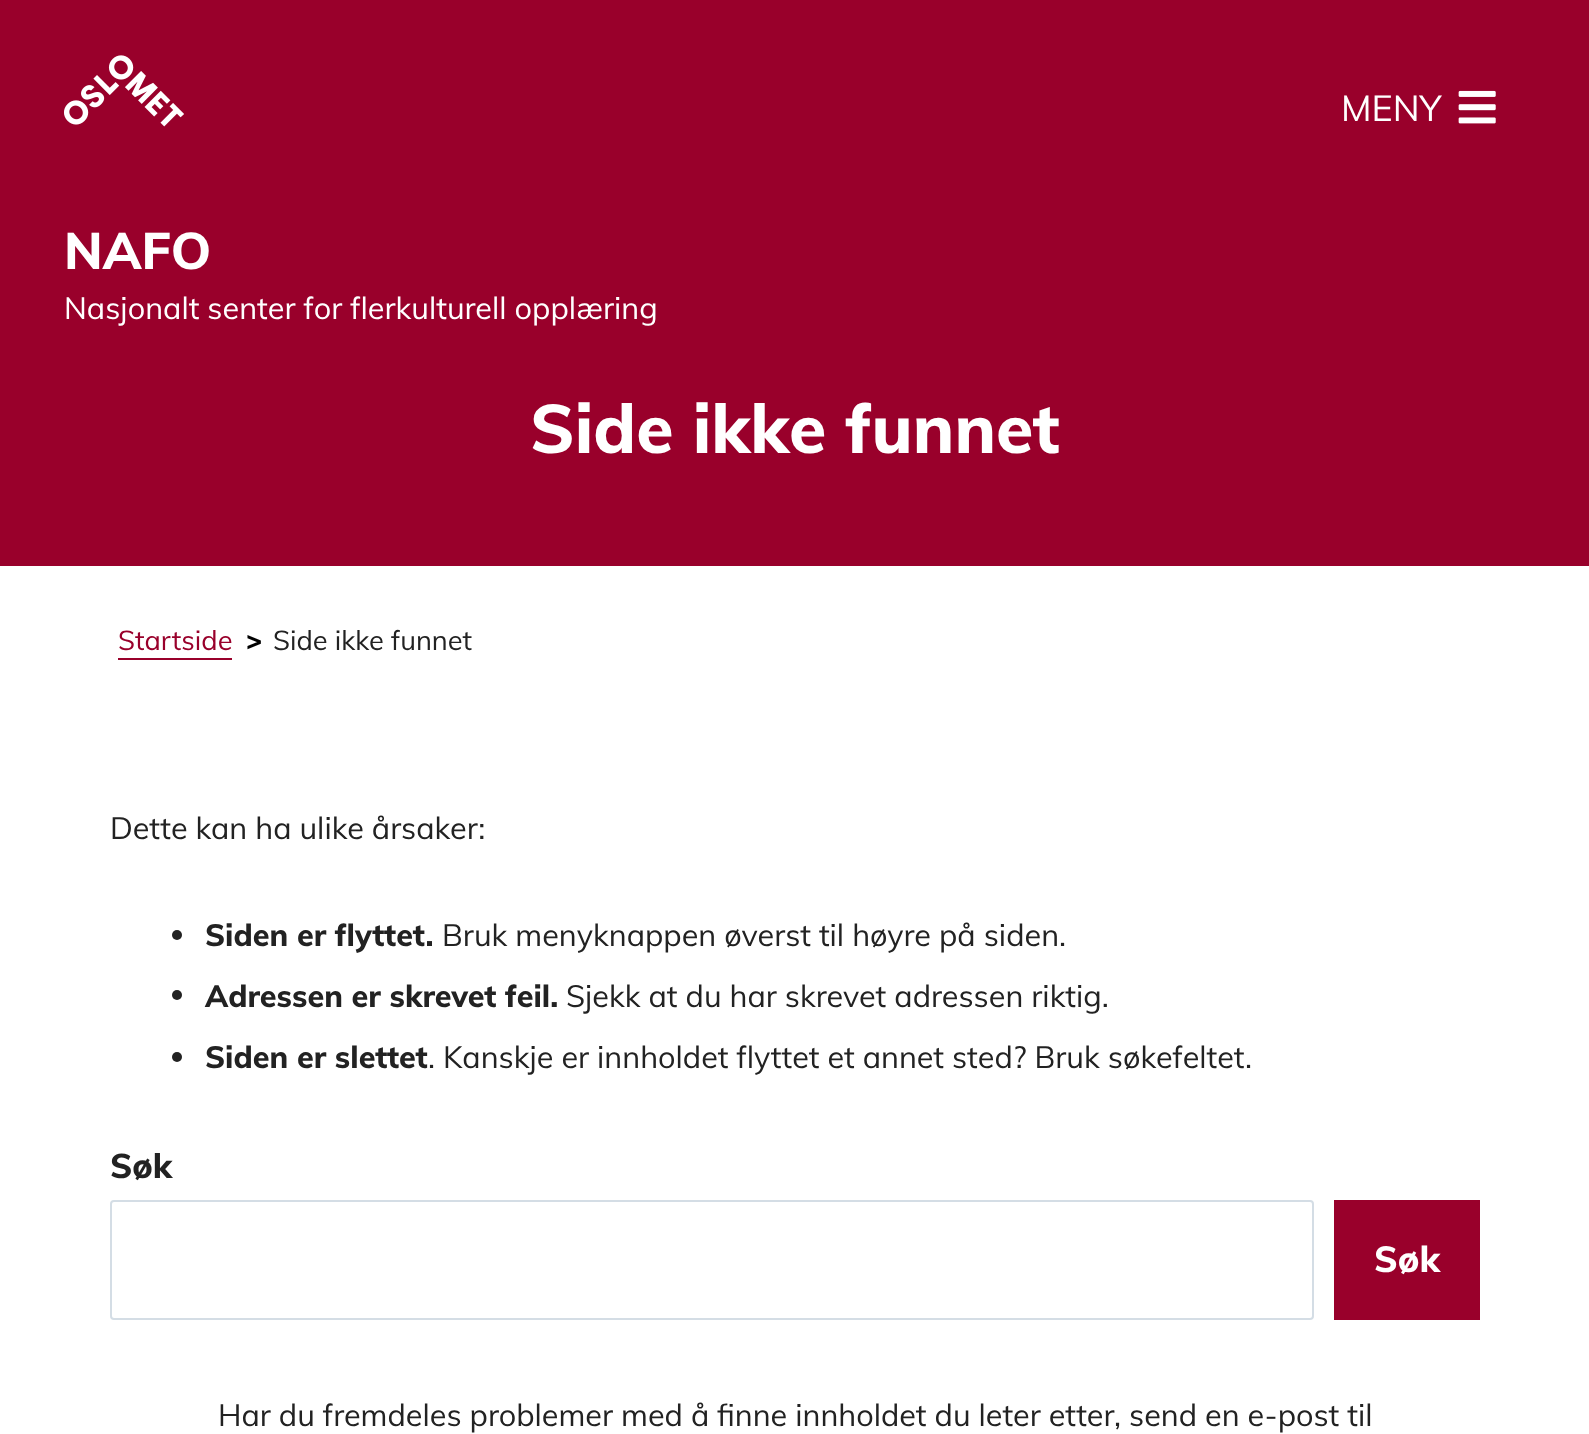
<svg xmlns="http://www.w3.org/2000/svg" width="1589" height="1434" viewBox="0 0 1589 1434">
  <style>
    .t1 { font: 36px Muli; fill: #fff; }
    .t2 { font: 800 51px Muli; fill: #fff; }
    .t3 { font: 30.6px Muli; fill: #fff; }
    .t4 { font: 800 68px Muli; fill: #fff; }
    .t5 { font: 27.25px Muli; fill: #99002b; }
    .t6 { font: 800 27.25px Muli; fill: #000; }
    .t7 { font: 27.25px Muli; fill: #222; }
    .t8 { font: 30.6px Muli; fill: #222; }
    .t9 { font: 800 30.6px Muli; fill: #222; }
    .t10 { font: 800 34px Muli; fill: #222; }
    .t11 { font: 800 36px Muli; fill: #fff; }
  </style>
  <rect width="100%" height="100%" fill="#fff"/>
  <rect x="0" y="0" width="1589" height="566" fill="#99002b"/>
  <text x="1341" y="121" class="t1">MENY</text>
  <image x="1458" y="90" width="38" height="34" href="images/1.png"/>
  <image x="64" y="55" width="120" height="72" href="images/2.png"/>
  <text x="64" y="269" class="t2">NAFO</text>
  <text x="64" y="319" class="t3">Nasjonalt senter for flerkulturell opplæring</text>
  <text x="530" y="453" class="t4">Side ikke funnet</text>
  <text x="118" y="650" class="t5">Startside</text>
  <rect x="118" y="658" width="114" height="2" fill="#99002b"/>
  <text x="246" y="650" class="t6">&gt;</text>
  <text x="273" y="650" class="t7">Side ikke funnet</text>
  <text x="110" y="839" class="t8">Dette kan ha ulike årsaker:</text>
  <circle cx="177" cy="935" r="5" fill="#222"/>
  <text x="205" y="946" class="t9">Siden er flyttet.</text>
  <text x="442" y="946" class="t8">Bruk menyknappen øverst til høyre på siden.</text>
  <circle cx="177" cy="995" r="5" fill="#222"/>
  <text x="205" y="1007" class="t9">Adressen er skrevet feil.</text>
  <text x="566" y="1007" class="t8">Sjekk at du har skrevet adressen riktig.</text>
  <circle cx="177" cy="1057" r="5" fill="#222"/>
  <text x="205" y="1068" class="t9">Siden er slettet</text>
  <text x="428" y="1068" class="t8">. Kanskje er innholdet flyttet et annet sted? Bruk søkefeltet.</text>
  <text x="110" y="1178" class="t10">Søk</text>
  <rect x="111" y="1201" width="1202" height="118" rx="3" fill="none" stroke="#d4dde5" stroke-width="2"/>
  <rect x="1334" y="1200" width="146" height="120" fill="#99002b"/>
  <text x="1374" y="1272" class="t11">Søk</text>
  <text x="218" y="1426" class="t8">Har du fremdeles problemer med å finne innholdet du leter etter, send en e-post til</text>
</svg>
